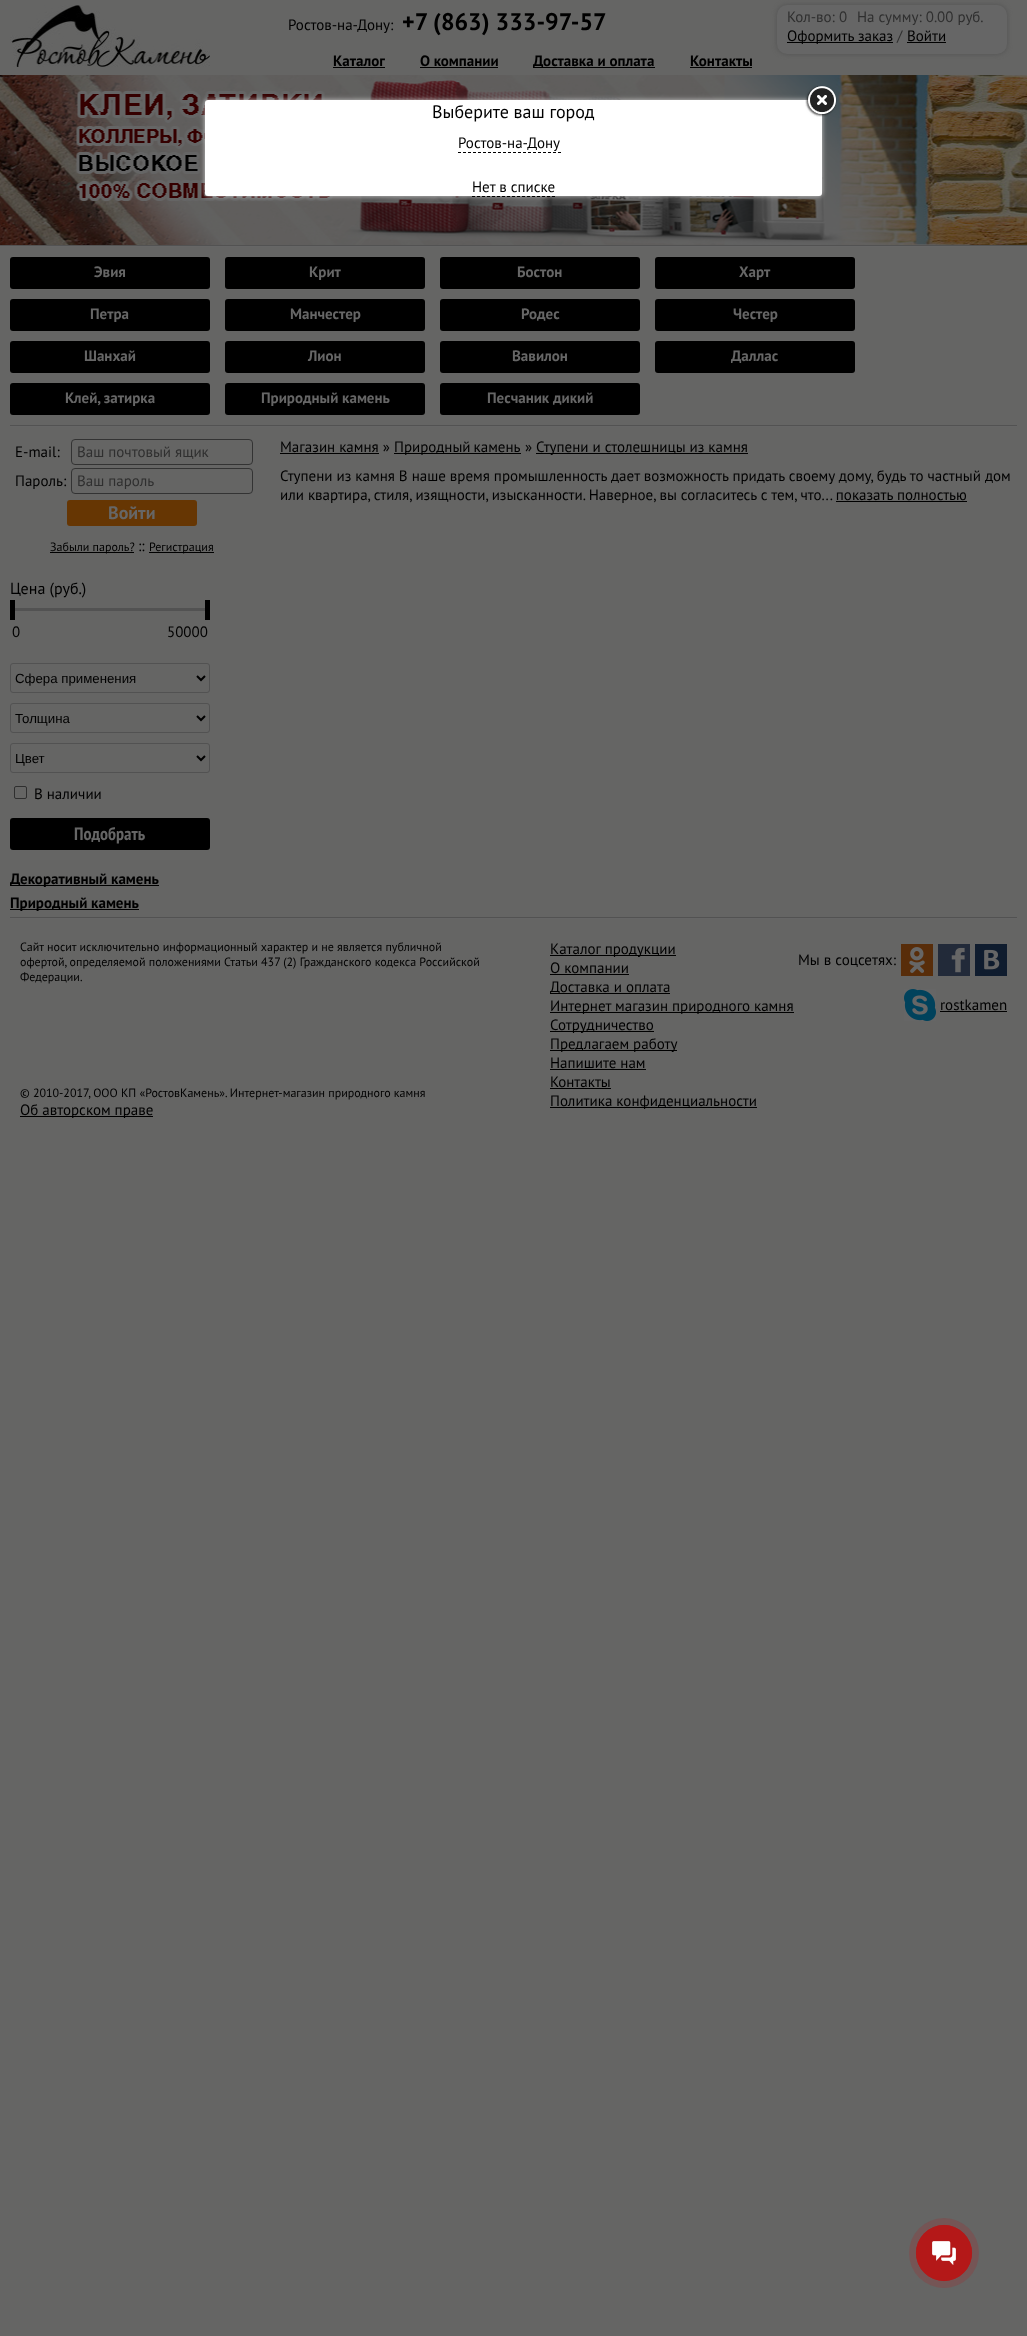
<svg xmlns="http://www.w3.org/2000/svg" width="1027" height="2336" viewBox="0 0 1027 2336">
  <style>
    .t1 { font: 15px PT Sans; fill: #000; }
    .t2 { font: bold 24px PT Sans; fill: #000; }
    .t3 { font: 15px PT Sans; fill: #2f2f2f; }
    .t4 { font: bold 15px PT Sans; fill: #000; }
    .t5 { font: 18px PT Sans; fill: #000; }
    .t6 { font: bold 15px PT Sans; fill: #666; }
    .t7 { font: bold 18px PT Sans; fill: #666; }
    .t8 { font: 12px PT Sans; fill: #000; }
    .t9 { font: 16px PT Sans; fill: #000; }
    .t10 { font: 13.25px Liberation Sans; fill: #000; }
    .t11 { font: bold 18px PT Sans Narrow; fill: #666; }
  </style>
  <rect width="100%" height="100%" fill="#656564"/>
  <image x="10" y="5" width="200" height="62" href="images/1.png"/>
  <text x="288" y="30" class="t1">Ростов-на-Дону:</text>
  <text x="402" y="30" class="t2">+7 (863) 333-97-57</text>
  <rect x="777" y="5" width="230" height="49" rx="10" fill="#525252" filter="blur(2.5px)"/>
  <rect x="777" y="5" width="230" height="49" rx="10" fill="#666"/>
  <text x="787" y="22" class="t3">Кол-во: 0</text>
  <text x="857" y="22" class="t3">На сумму: 0.00 руб.</text>
  <rect x="787" y="42" width="106" height="1" fill="#000"/>
  <text x="787" y="41" class="t1">Оформить заказ</text>
  <text x="897" y="41" class="t3">/</text>
  <text x="907" y="41" class="t1">Войти</text>
  <rect x="907" y="42" width="39" height="1" fill="#000"/>
  <text x="333" y="66" class="t4">Каталог</text>
  <rect x="333" y="67" width="52" height="1" fill="#000"/>
  <text x="420" y="66" class="t4">О компании</text>
  <rect x="420" y="67" width="78" height="1" fill="#000"/>
  <rect x="533" y="67" width="122" height="1" fill="#000"/>
  <text x="533" y="66" class="t4">Доставка и оплата</text>
  <text x="690" y="66" class="t4">Контакты</text>
  <rect x="690" y="67" width="62" height="1" fill="#000"/>
  <image x="0" y="75" width="1027" height="170" href="images/2.png"/>
  <rect x="205" y="100" width="617" height="96" rx="3" fill="#ccc" filter="blur(2.5px)"/>
  <rect x="205" y="100" width="617" height="96" rx="3" fill="#fff"/>
  <text x="432" y="118" class="t5">Выберите ваш город</text>
  <image x="805" y="85" width="32" height="32" href="images/3.png"/>
  <text x="458" y="148" class="t1">Ростов-на-Дону</text>
  <path d="M458 152.5H561" fill="none" stroke="#000" stroke-dasharray="3 2"/>
  <text x="472" y="192" class="t1">Нет в списке</text>
  <path d="M472 196.5H555" fill="none" stroke="#000" stroke-dasharray="3 2"/>
  <image x="0" y="245" width="1027" height="2" href="images/4.png"/>
  <rect x="10" y="257" width="200" height="32" rx="3" fill="#000"/>
  <text x="94" y="277" class="t6">Эвия</text>
  <rect x="225" y="257" width="200" height="32" rx="3" fill="#000"/>
  <text x="309" y="277" class="t6">Крит</text>
  <rect x="440" y="257" width="200" height="32" rx="3" fill="#000"/>
  <text x="517" y="277" class="t6">Бостон</text>
  <rect x="655" y="257" width="200" height="32" rx="3" fill="#000"/>
  <text x="739" y="277" class="t6">Харт</text>
  <rect x="10" y="299" width="200" height="32" rx="3" fill="#000"/>
  <text x="90" y="319" class="t6">Петра</text>
  <rect x="225" y="299" width="200" height="32" rx="3" fill="#000"/>
  <text x="290" y="319" class="t6">Манчестер</text>
  <rect x="440" y="299" width="200" height="32" rx="3" fill="#000"/>
  <text x="521" y="319" class="t6">Родес</text>
  <rect x="655" y="299" width="200" height="32" rx="3" fill="#000"/>
  <text x="733" y="319" class="t6">Честер</text>
  <rect x="10" y="341" width="200" height="32" rx="3" fill="#000"/>
  <text x="84" y="361" class="t6">Шанхай</text>
  <rect x="225" y="341" width="200" height="32" rx="3" fill="#000"/>
  <text x="308" y="361" class="t6">Лион</text>
  <rect x="440" y="341" width="200" height="32" rx="3" fill="#000"/>
  <text x="512" y="361" class="t6">Вавилон</text>
  <rect x="655" y="341" width="200" height="32" rx="3" fill="#000"/>
  <text x="731" y="361" class="t6">Даллас</text>
  <rect x="10" y="383" width="200" height="32" rx="3" fill="#000"/>
  <text x="65" y="403" class="t6">Клей, затирка</text>
  <rect x="225" y="383" width="200" height="32" rx="3" fill="#000"/>
  <text x="261" y="403" class="t6">Природный камень</text>
  <rect x="440" y="383" width="200" height="32" rx="3" fill="#000"/>
  <text x="487" y="403" class="t6">Песчаник дикий</text>
  <image x="10" y="425" width="1007" height="2" href="images/5.png"/>
  <text x="15" y="457" class="t1">E-mail:</text>
  <rect x="71.5" y="439.5" width="181" height="25" rx="3.5" fill="none" stroke="#333"/>
  <text x="77" y="457" class="t3">Ваш почтовый ящик</text>
  <text x="15" y="486" class="t1">Пароль:</text>
  <rect x="71.5" y="468.5" width="181" height="25" rx="3.5" fill="none" stroke="#333"/>
  <text x="77" y="486" class="t3">Ваш пароль</text>
  <rect x="67" y="500" width="130" height="26" rx="3" fill="#663603"/>
  <text x="108" y="519" class="t7">Войти</text>
  <rect x="50" y="552" width="84" height="1" fill="#000"/>
  <text x="50" y="551" class="t8">Забыли пароль?</text>
  <text x="138" y="551" class="t1">::</text>
  <rect x="149" y="552" width="65" height="1" fill="#000"/>
  <text x="149" y="551" class="t8">Регистрация</text>
  <text x="10" y="594" class="t9">Цена (руб.)</text>
  <rect x="10" y="608" width="195" height="3" fill="#525252"/>
  <rect x="10" y="600" width="5" height="20" fill="#000"/>
  <rect x="205" y="600" width="5" height="20" fill="#000"/>
  <text x="12" y="637" class="t1">0</text>
  <text x="167" y="637" class="t1">50000</text>
  <rect x="10.5" y="663.5" width="199" height="29" rx="2.5" fill="none" stroke="#525252"/>
  <path d="M197 676L201 680L205 676" fill="none" stroke="#000" stroke-width="2"/>
  <text x="15" y="683" class="t10">Сфера применения</text>
  <rect x="10.5" y="703.5" width="199" height="29" rx="2.5" fill="none" stroke="#525252"/>
  <path d="M197 716L201 720L205 716" fill="none" stroke="#000" stroke-width="2"/>
  <text x="15" y="723" class="t10">Толщина</text>
  <rect x="10.5" y="743.5" width="199" height="29" rx="2.5" fill="none" stroke="#525252"/>
  <path d="M197 756L201 760L205 756" fill="none" stroke="#000" stroke-width="2"/>
  <text x="15" y="763" class="t10">Цвет</text>
  <rect x="14.5" y="786.5" width="12" height="12" rx="1.5" fill="none" stroke="#2f2f2f"/>
  <text x="34" y="799" class="t1">В наличии</text>
  <rect x="10" y="818" width="200" height="32" rx="3" fill="#000"/>
  <text x="74" y="840" class="t11">Подобрать</text>
  <rect x="10" y="885" width="149" height="1" fill="#000"/>
  <text x="10" y="884" class="t4">Декоративный камень</text>
  <rect x="10" y="909" width="129" height="1" fill="#000"/>
  <text x="10" y="908" class="t4">Природный камень</text>
  <text x="280" y="452" class="t1">Магазин камня »</text>
  <rect x="280" y="453" width="99" height="1" fill="#000"/>
  <rect x="394" y="453" width="127" height="1" fill="#000"/>
  <text x="394" y="452" word-spacing="-1" class="t1">Природный камень</text>
  <text x="525" y="452" class="t1">»</text>
  <rect x="536" y="453" width="212" height="1" fill="#000"/>
  <text x="536" y="452" class="t1">Ступени и столешницы из камня</text>
  <text x="280" y="481" class="t1">Ступени из камня В наше время промышленность дает возможность придать своему дому, будь то частный дом</text>
  <text x="280" y="500" class="t1">или квартира, стиля, изящности, изысканности. Наверное, вы согласитесь с тем, что... показать полностью</text>
  <rect x="836" y="501" width="131" height="1" fill="#000"/>
  <image x="10" y="917" width="1007" height="2" href="images/5.png"/>
  <text x="20" y="951" class="t8">Cайт носит исключительно информационный характер и не является публичной</text>
  <text x="20" y="966" class="t8">офертой, определяемой положениями Статьи 437 (2) Гражданского кодекса Российской</text>
  <text x="20" y="981" class="t8">Федерации.</text>
  <rect x="550" y="955" width="126" height="1" fill="#000"/>
  <text x="550" y="954" class="t1">Каталог продукции</text>
  <text x="550" y="973" class="t1">О компании</text>
  <rect x="550" y="974" width="79" height="1" fill="#000"/>
  <rect x="550" y="993" width="120" height="1" fill="#000"/>
  <text x="550" y="992" class="t1">Доставка и оплата</text>
  <rect x="550" y="1012" width="244" height="1" fill="#000"/>
  <text x="550" y="1011" class="t1">Интернет магазин природного камня</text>
  <rect x="550" y="1031" width="104" height="1" fill="#000"/>
  <text x="550" y="1030" class="t1">Сотрудничество</text>
  <rect x="550" y="1050" width="127" height="1" fill="#000"/>
  <text x="550" y="1049" class="t1">Предлагаем работу</text>
  <text x="550" y="1068" class="t1">Напишите нам</text>
  <rect x="550" y="1069" width="96" height="1" fill="#000"/>
  <text x="550" y="1087" class="t1">Контакты</text>
  <rect x="550" y="1088" width="61" height="1" fill="#000"/>
  <rect x="550" y="1107" width="207" height="1" fill="#000"/>
  <text x="550" y="1106" class="t1">Политика конфиденциальности</text>
  <text x="798" y="965" class="t1">Мы в соцсетях:</text>
  <image x="901" y="944" width="32" height="32" href="images/6.png"/>
  <image x="938" y="944" width="32" height="32" href="images/7.png"/>
  <image x="975" y="944" width="32" height="32" href="images/8.png"/>
  <image x="904" y="989" width="32" height="32" href="images/9.png"/>
  <text x="940" y="1010" class="t1">rostkamen</text>
  <rect x="940" y="1011" width="67" height="1" fill="#000"/>
  <text x="20" y="1097" class="t8">© 2010-2017, ООО КП «РостовКамень». Интернет-магазин природного камня</text>
  <rect x="20" y="1116" width="133" height="1" fill="#000"/>
  <text x="20" y="1115" class="t1">Об авторском праве</text>
  <circle cx="944" cy="2253" r="35" fill="#755555"/>
  <circle cx="944" cy="2253" r="27.6" fill="none" stroke="#b41818" stroke-width="0.8"/>
  <circle cx="944" cy="2253" r="28" fill="#b41818"/>
  <image x="932" y="2241" width="24" height="24" href="images/10.png"/>
</svg>
